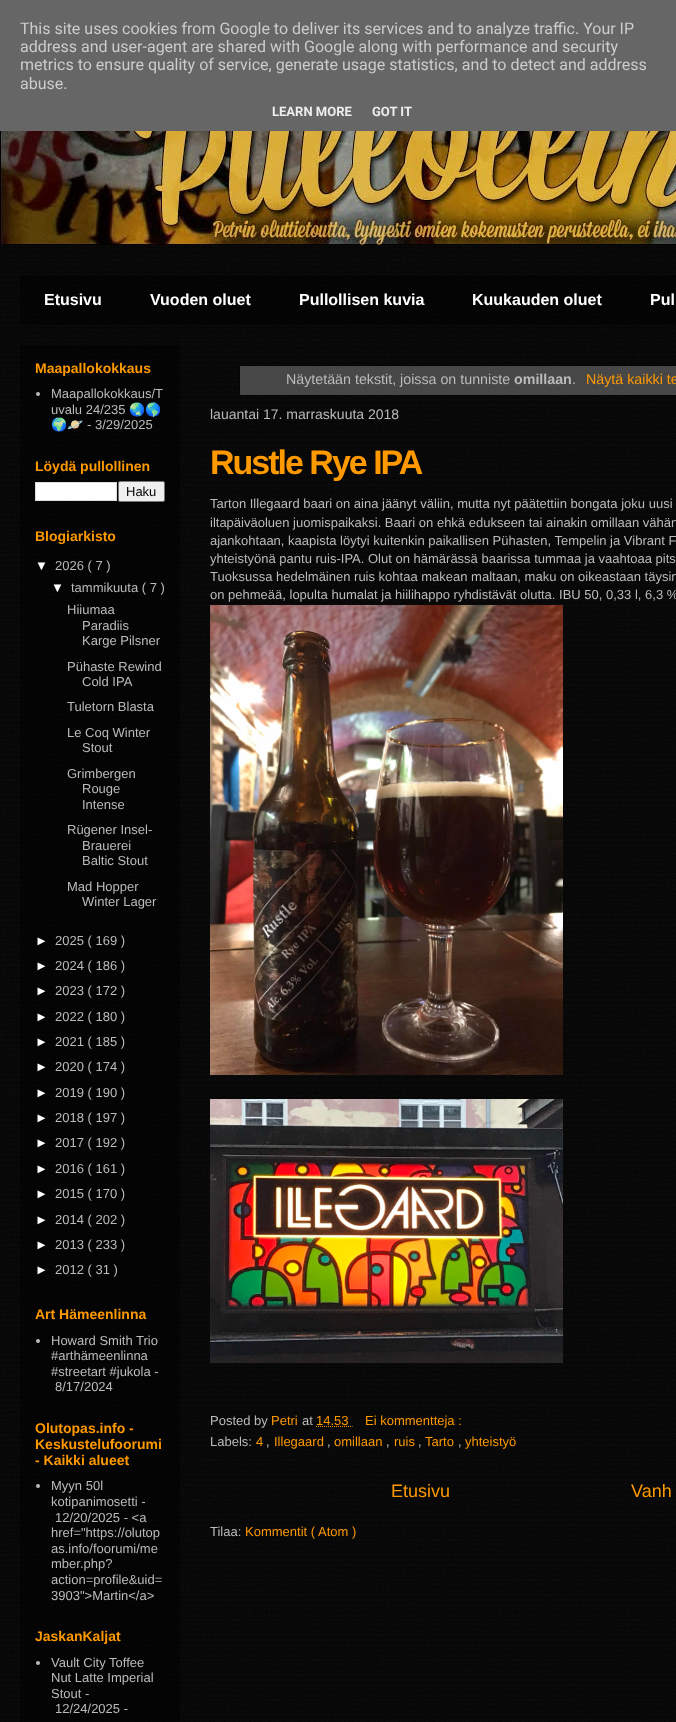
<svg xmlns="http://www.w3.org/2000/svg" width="676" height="1722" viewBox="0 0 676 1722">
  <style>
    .t1 { font: 16px Roboto; fill: #ccc; }
    .t2 { font: bold 13px Roboto; fill: #eee; }
    .t3 { font: bold 16px Liberation Sans; fill: #fff; }
    .t4 { font: bold 14px Liberation Sans; fill: #f90; }
    .t5 { font: 13px Liberation Sans; fill: #bbb; }
    .t6 { font: 13px Noto Color Emoji; fill: #bbb; }
    .t7 { font: 13px Liberation Sans; fill: #000; }
    .t8 { font: 13px Liberation Sans; fill: #fff; }
    .t9 { font: 14.25px Liberation Sans; fill: #bbb; }
    .t10 { font: bold 14.25px Liberation Sans; fill: #bbb; }
    .t11 { font: 14.25px Liberation Sans; fill: #f90; }
    .t12 { font: 14px Liberation Sans; fill: #bbb; }
    .t13 { font: bold 34px Liberation Sans; letter-spacing: -2px; fill: #f90; }
    .t14 { font: 13px Liberation Sans; fill: #f90; }
    .t15 { font: 18px Liberation Sans; fill: #f90; }
  </style>
  <rect width="100%" height="100%" fill="#fff"/>
  <image x="0" y="245" width="676" height="1477" href="images/1.png"/>
  <rect x="0" y="0" width="676" height="131" fill="#666"/>
  <text x="20" y="34" class="t1">This site uses cookies from Google to deliver its services and to analyze traffic. Your IP</text>
  <text x="20" y="52" class="t1">address and user-agent are shared with Google along with performance and security</text>
  <text x="20" y="70" class="t1">metrics to ensure quality of service, generate usage statistics, and to detect and address</text>
  <text x="20" y="89" class="t1">abuse.</text>
  <text x="272" y="116" class="t2">LEARN MORE</text>
  <text x="372" y="116" class="t2">GOT IT</text>
  <image x="0" y="131" width="676" height="114" href="images/2.png"/>
  <rect x="20" y="275" width="656" height="50" fill="#00000080"/>
  <text x="44" y="305" class="t3">Etusivu</text>
  <text x="150" y="305" class="t3">Vuoden oluet</text>
  <text x="299" y="305" class="t3">Pullollisen kuvia</text>
  <text x="472" y="305" class="t3">Kuukauden oluet</text>
  <text x="650" y="305" class="t3">Pul</text>
  <rect x="20" y="345" width="160" height="1377" fill="#00000080"/>
  <text x="35" y="373" class="t4">Maapallokokkaus</text>
  <circle cx="38" cy="394" r="2" fill="#bbb"/>
  <text x="51" y="398" class="t5">Maapallokokkaus/T</text>
  <text x="51" y="414" class="t5">uvalu 24/235</text>
  <text x="129" y="414" class="t6">🌏🌎</text>
  <text x="51" y="429" class="t6">🌍🪐</text>
  <text x="87" y="429" class="t5">- 3/29/2025</text>
  <text x="35" y="471" class="t4">Löydä pullollinen</text>
  <rect x="35.5" y="482.5" width="81" height="18" fill="#fff" stroke="#ddd"/>
  <rect x="118.5" y="481.5" width="46" height="20" rx="1.5" fill="#efefef" stroke="#767676"/>
  <text x="126" y="496" class="t7">Haku</text>
  <text x="35" y="541" class="t4">Blogiarkisto</text>
  <text x="35" y="570" class="t8">▼</text>
  <text x="55" y="570" class="t5">2026 ( 7 )</text>
  <text x="51" y="592" class="t8">▼</text>
  <text x="71" y="592" class="t5">tammikuuta ( 7 )</text>
  <text x="67" y="614" class="t5">Hiiumaa</text>
  <text x="82" y="630" class="t5">Paradiis</text>
  <text x="82" y="645" class="t5">Karge Pilsner</text>
  <text x="67" y="671" class="t5">Pühaste Rewind</text>
  <text x="82" y="686" class="t5">Cold IPA</text>
  <text x="67" y="711" class="t5">Tuletorn Blasta</text>
  <text x="67" y="737" class="t5">Le Coq Winter</text>
  <text x="82" y="752" class="t5">Stout</text>
  <text x="67" y="778" class="t5">Grimbergen</text>
  <text x="82" y="793" class="t5">Rouge</text>
  <text x="82" y="809" class="t5">Intense</text>
  <text x="67" y="834" class="t5">Rügener Insel-</text>
  <text x="82" y="850" class="t5">Brauerei</text>
  <text x="82" y="865" class="t5">Baltic Stout</text>
  <text x="67" y="891" class="t5">Mad Hopper</text>
  <text x="82" y="906" class="t5">Winter Lager</text>
  <text x="35" y="945" class="t8">►</text>
  <text x="55" y="945" class="t5">2025 ( 169 )</text>
  <text x="35" y="970" class="t8">►</text>
  <text x="55" y="970" class="t5">2024 ( 186 )</text>
  <text x="35" y="995" class="t8">►</text>
  <text x="55" y="995" class="t5">2023 ( 172 )</text>
  <text x="35" y="1021" class="t8">►</text>
  <text x="55" y="1021" class="t5">2022 ( 180 )</text>
  <text x="35" y="1046" class="t8">►</text>
  <text x="55" y="1046" class="t5">2021 ( 185 )</text>
  <text x="35" y="1071" class="t8">►</text>
  <text x="55" y="1071" class="t5">2020 ( 174 )</text>
  <text x="35" y="1097" class="t8">►</text>
  <text x="55" y="1097" class="t5">2019 ( 190 )</text>
  <text x="35" y="1122" class="t8">►</text>
  <text x="55" y="1122" class="t5">2018 ( 197 )</text>
  <text x="35" y="1147" class="t8">►</text>
  <text x="55" y="1147" class="t5">2017 ( 192 )</text>
  <text x="35" y="1173" class="t8">►</text>
  <text x="55" y="1173" class="t5">2016 ( 161 )</text>
  <text x="35" y="1198" class="t8">►</text>
  <text x="55" y="1198" class="t5">2015 ( 170 )</text>
  <text x="35" y="1224" class="t8">►</text>
  <text x="55" y="1224" class="t5">2014 ( 202 )</text>
  <text x="35" y="1249" class="t8">►</text>
  <text x="55" y="1249" class="t5">2013 ( 233 )</text>
  <text x="35" y="1274" class="t8">►</text>
  <text x="55" y="1274" class="t5">2012 ( 31 )</text>
  <text x="35" y="1319" class="t4">Art Hämeenlinna</text>
  <circle cx="38" cy="1341" r="2" fill="#bbb"/>
  <text x="51" y="1345" class="t5">Howard Smith Trio</text>
  <text x="51" y="1360" class="t5">#arthämeenlinna</text>
  <text x="51" y="1376" class="t5">#streetart #jukola -</text>
  <text x="55" y="1391" class="t5">8/17/2024</text>
  <text x="35" y="1433" class="t4">Olutopas.info -</text>
  <text x="35" y="1449" class="t4">Keskustelufoorumi</text>
  <text x="35" y="1465" class="t4">- Kaikki alueet</text>
  <circle cx="38" cy="1486" r="2" fill="#bbb"/>
  <text x="51" y="1490" class="t5">Myyn 50l</text>
  <text x="51" y="1506" class="t5">kotipanimosetti -</text>
  <text x="55" y="1522" class="t5">12/20/2025 - &lt;a</text>
  <text x="51" y="1537" class="t5">href="https://olutop</text>
  <text x="51" y="1553" class="t5">as.info/foorumi/me</text>
  <text x="51" y="1568" class="t5">mber.php?</text>
  <text x="51" y="1584" class="t5">action=profile&amp;uid=</text>
  <text x="51" y="1600" class="t5">3903"&gt;Martin&lt;/a&gt;</text>
  <text x="35" y="1641" class="t4">JaskanKaljat</text>
  <circle cx="38" cy="1663" r="2" fill="#bbb"/>
  <text x="51" y="1667" class="t5">Vault City Toffee</text>
  <text x="51" y="1682" class="t5">Nut Latte Imperial</text>
  <text x="51" y="1698" class="t5">Stout -</text>
  <text x="55" y="1713" class="t5">12/24/2025 -</text>
  <rect x="239.5" y="365.5" width="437" height="30" fill="none" stroke="#00000066"/>
  <rect x="240" y="366" width="436" height="29" fill="#cccccc52"/>
  <text x="286" y="384" class="t9">Näytetään tekstit, joissa on tunniste</text>
  <text x="514" y="384" class="t10">omillaan</text>
  <text x="572" y="384" class="t9">.</text>
  <text x="586" y="384" class="t11">Näytä kaikki te</text>
  <text x="210" y="419" class="t12">lauantai 17. marraskuuta 2018</text>
  <text x="210" y="474" class="t13">Rustle Rye IPA</text>
  <text x="210" y="508" class="t5">Tarton Illegaard baari on aina jäänyt väliin, mutta nyt päätettiin bongata joku uusi</text>
  <text x="210" y="527" class="t5">iltapäiväoluen juomispaikaksi. Baari on ehkä edukseen tai ainakin omillaan vähän</text>
  <text x="210" y="545" class="t5">ajankohtaan, kaapista löytyi kuitenkin paikallisen Pühasten, Tempelin ja Vibrant F</text>
  <text x="210" y="563" class="t5">yhteistyönä pantu ruis-IPA. Olut on hämärässä baarissa tummaa ja vaahtoaa pits</text>
  <text x="210" y="581" class="t5">Tuoksussa hedelmäinen ruis kohtaa makean maltaan, maku on oikeastaan täysin</text>
  <text x="210" y="599" class="t5">on pehmeää, lopulta humalat ja hiilihappo ryhdistävät olutta. IBU 50, 0,33 l, 6,3 %</text>
  <image x="210" y="605" width="353" height="470" href="images/3.png"/>
  <image x="210" y="1099" width="353" height="264" href="images/4.png"/>
  <text x="210" y="1425" class="t5">Posted by</text>
  <text x="271" y="1425" class="t14">Petri</text>
  <text x="302" y="1425" class="t5">at</text>
  <text x="316" y="1425" class="t14">14.53</text>
  <path d="M316 1426.5H352.5" fill="none" stroke="#f90" stroke-dasharray="1 1"/>
  <text x="365" y="1425" class="t14">Ei kommentteja :</text>
  <text x="210" y="1446" class="t5">Labels:</text>
  <text x="256" y="1446" class="t14">4</text>
  <text x="266" y="1446" class="t5">,</text>
  <text x="274" y="1446" class="t14">Illegaard</text>
  <text x="327" y="1446" class="t5">,</text>
  <text x="334" y="1446" class="t14">omillaan</text>
  <text x="386" y="1446" class="t5">,</text>
  <text x="394" y="1446" class="t14">ruis</text>
  <text x="418" y="1446" class="t5">,</text>
  <text x="425" y="1446" class="t14">Tarto</text>
  <text x="458" y="1446" class="t5">,</text>
  <text x="465" y="1446" class="t14">yhteistyö</text>
  <text x="391" y="1497" class="t15">Etusivu</text>
  <text x="631" y="1497" class="t15">Vanh</text>
  <text x="210" y="1536" class="t5">Tilaa:</text>
  <text x="245" y="1536" class="t14">Kommentit (</text>
  <text x="318" y="1536" class="t14">Atom )</text>
</svg>
